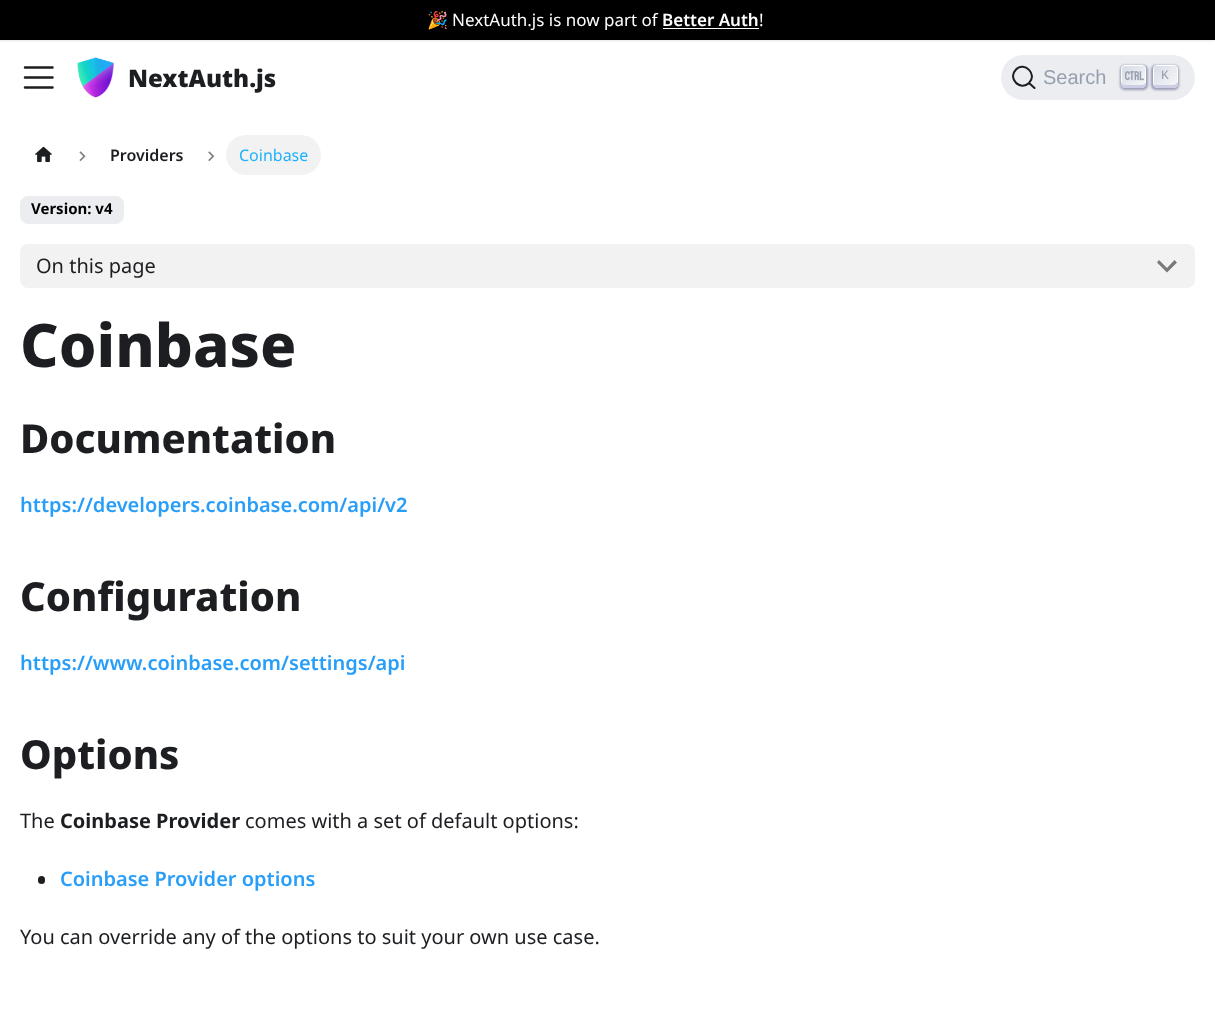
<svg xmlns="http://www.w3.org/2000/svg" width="1215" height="1035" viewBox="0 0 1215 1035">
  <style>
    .t1 { font: 17px Noto Color Emoji; fill: #fff; }
    .t2 { font: 17px Noto Sans; fill: #fff; }
    .t3 { font: 600 17px Noto Sans; fill: #fff; }
    .t4 { font: 900 24px Noto Sans; fill: #1c1e21; }
    .t5 { font: 20px Liberation Sans; fill: #969faf; }
    .t6 { font: 13px Liberation Mono; fill: #969faf; }
    .t7 { font: 600 16px Noto Sans; fill: #1c1e21; }
    .t8 { font: 16px Noto Sans; fill: #1eb1fc; }
    .t9 { font: bold 15px Noto Sans; fill: #000; }
    .t10 { font: 20px Noto Sans; fill: #1c1e21; }
    .t11 { font: 800 60px Noto Sans; fill: #1c1e21; }
    .t12 { font: 800 40px Noto Sans; fill: #1c1e21; }
    .t13 { font: 600 20px Noto Sans; fill: #289ef9; }
    .t14 { font: bold 20px Noto Sans; fill: #1c1e21; }
  </style>
  <defs>
    <linearGradient id="g1" gradientUnits="userSpaceOnUse" x1="1122" y1="64" x2="1146" y2="88"><stop offset="0" stop-color="#d5dbe4"/><stop offset="1" stop-color="#f8f8f8"/></linearGradient>
    <linearGradient id="g2" gradientUnits="userSpaceOnUse" x1="1153" y1="64" x2="1177" y2="88"><stop offset="0" stop-color="#d5dbe4"/><stop offset="1" stop-color="#f8f8f8"/></linearGradient>
  </defs>
  <rect width="100%" height="100%" fill="#fff"/>
  <rect x="0" y="1" width="1215" height="40" fill="#0000001a" filter="blur(1px)"/>
  <rect x="0" y="0" width="1215" height="40" fill="#000"/>
  <text x="427" y="26" class="t1">🎉</text>
  <text x="452" y="26" class="t2">NextAuth.js is now part of</text>
  <text x="662" y="26" class="t3">Better Auth</text>
  <rect x="663" y="28" width="96" height="1" fill="#fff"/>
  <text x="759" y="26" class="t2">!</text>
  <path d="M25 67.5H52.5M25 77.5H52.5M25 87.5H52.5" fill="none" stroke="#1c1e21" stroke-width="2.5" stroke-linecap="round"/>
  <image x="77" y="57" width="37" height="41" href="images/1.png"/>
  <text x="128" y="87" class="t4">NextAuth.js</text>
  <rect x="1001" y="55" width="194" height="45" rx="22.5" fill="#ebedf0"/>
  <path d="M1029 83L1034.5 88L1029 83C1020.5 91.5 1007 78.5 1016 69.5C1024.5 61 1038 74.5 1029 83Z" fill="none" stroke="#1c1e21" stroke-width="2" stroke-linecap="round" stroke-linejoin="round"/>
  <text x="1043" y="84" class="t5">Search</text>
  <rect x="1120" y="65" width="28" height="25" rx="5" fill="#1e235a66" filter="blur(1px)"/>
  <rect x="1121.5" y="65.5" width="24" height="22" rx="3.5" fill="url(#g1)" stroke="#fff"/>
  <path d="M1146 82C1145.5 84 1144 85 1140 85H1125C1122 85 1121 82.5 1121 79.5V84C1121 86 1123 88 1125 88H1142C1144 88 1146 86 1146 84Z" fill="#cdcde6"/>
  <image x="1125" y="71" width="19" height="10" href="images/2.png"/>
  <rect x="1151" y="65" width="28" height="25" rx="5" fill="#1e235a66" filter="blur(1px)"/>
  <rect x="1153.5" y="65.5" width="24" height="22" rx="3.5" fill="url(#g2)" stroke="#fff"/>
  <path d="M1153 83.5V84C1153 86 1155 88 1157 88H1174C1176 88 1178 86 1178 84V79.5C1178 83 1176.5 85 1171 85H1156C1154.5 85 1153.5 84.5 1153 83.5Z" fill="#cdcde6"/>
  <text x="1161" y="79" class="t6">K</text>
  <image x="35" y="146" width="17" height="17" href="images/3.png"/>
  <image x="79" y="151" width="7" height="10" href="images/4.png"/>
  <text x="110" y="161" class="t7">Providers</text>
  <image x="208" y="151" width="7" height="10" href="images/5.png"/>
  <rect x="226" y="135" width="95" height="40" rx="20" fill="#f2f2f2"/>
  <text x="239" y="161" class="t8">Coinbase</text>
  <rect x="20.5" y="196.5" width="103" height="27" rx="7.5" fill="#ebedf0" stroke="#ebedf0"/>
  <text x="31" y="214" class="t9">Version: v4</text>
  <rect x="20" y="244" width="1175" height="44" rx="8" fill="#f2f2f2"/>
  <text x="36" y="273" class="t10">On this page</text>
  <path d="M1174.5 260L1167 268L1159 260L1157 262.5L1167 272.5L1177 262.5Z" fill="#797979"/>
  <text x="20" y="367" class="t11">Coinbase</text>
  <text x="20" y="453" class="t12">Documentation</text>
  <text x="20" y="512" class="t13">https://developers.coinbase.com/api/v2</text>
  <text x="20" y="611" class="t12">Configuration</text>
  <text x="20" y="670" class="t13">https://www.coinbase.com/settings/api</text>
  <text x="20" y="769" class="t12">Options</text>
  <text x="20" y="828" class="t10">The</text>
  <text x="60" y="828" class="t14">Coinbase Provider</text>
  <text x="245" y="828" class="t10">comes with a set of default options:</text>
  <rect x="38" y="876" width="7" height="8" rx="3.5" fill="#1c1e21"/>
  <text x="60" y="886" class="t13">Coinbase Provider options</text>
  <text x="20" y="944" class="t10">You can override any of the options to suit your own use case.</text>
</svg>
